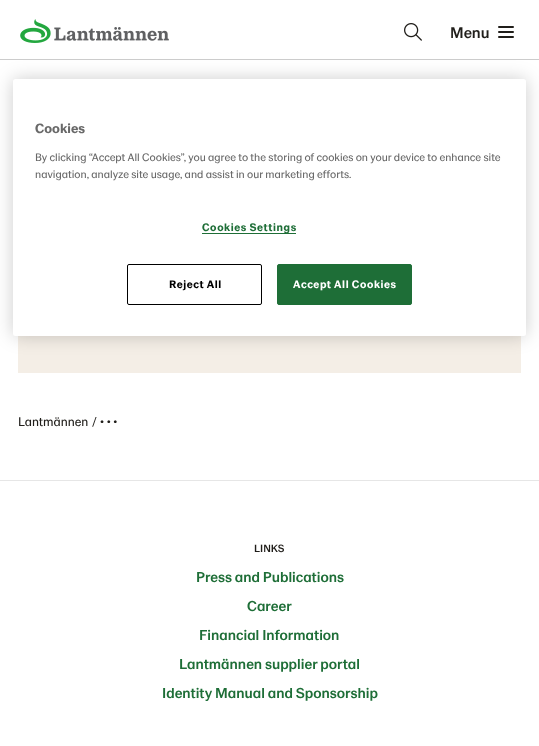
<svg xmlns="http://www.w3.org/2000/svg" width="539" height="746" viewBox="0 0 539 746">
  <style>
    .t1 { font: 500 16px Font; fill: #201e1a; }
    .t2 { font: 13px Font; fill: #201e1a; }
    .t3 { font: 500 11px Font; fill: #201e1a; }
    .t4 { font: 500 15px Font; fill: #1e6e37; }
    .t5 { font: bold 14px Font; fill: #696969; }
    .t6 { font: 11.4px Font; fill: #696969; }
    .t7 { font: bold 11.4px Font; letter-spacing: 0.6px; fill: #1e6e37; }
    .t8 { font: bold 11.4px Font; letter-spacing: 0.6px; fill: #000; }
    .t9 { font: bold 11.4px Font; letter-spacing: 0.6px; fill: #fff; }
  </style>
  <rect width="100%" height="100%" fill="#fff"/>
  <rect x="0" y="59" width="539" height="1" fill="#ccc"/>
  <image x="20" y="19" width="149" height="24" href="images/1.png"/>
  <image x="404" y="23" width="18" height="18" href="images/2.png"/>
  <text x="450" y="38" class="t1">Menu</text>
  <rect x="498" y="26" width="16" height="2" rx="1" fill="#201e1a"/>
  <rect x="498" y="31" width="16" height="2" rx="1" fill="#201e1a"/>
  <rect x="498" y="36" width="16" height="2" rx="1" fill="#201e1a"/>
  <rect x="18" y="336" width="503" height="37" fill="#f4eee6"/>
  <text x="18" y="426" class="t2">Lantmännen</text>
  <text x="92" y="426" class="t2">/</text>
  <text x="100" y="426" class="t2">• • •</text>
  <rect x="0" y="480" width="539" height="1" fill="#e6e6e6"/>
  <text x="254" y="552" class="t3">LINKS</text>
  <text x="196" y="582" class="t4">Press and Publications</text>
  <text x="247" y="611" class="t4">Career</text>
  <text x="199" y="640" class="t4">Financial Information</text>
  <text x="179" y="669" class="t4">Lantmännen supplier portal</text>
  <text x="162" y="698" class="t4">Identity Manual and Sponsorship</text>
  <rect x="13" y="79" width="513" height="257" rx="2.5" fill="#00000033" filter="blur(9px)"/>
  <rect x="13" y="79" width="513" height="257" rx="2.5" fill="#fff"/>
  <text x="35" y="133" class="t5">Cookies</text>
  <text x="35" y="161" class="t6">By clicking “Accept All Cookies”, you agree to the storing of cookies on your device to enhance site</text>
  <text x="35" y="178" class="t6">navigation, analyze site usage, and assist in our marketing efforts.</text>
  <rect x="202" y="233" width="94" height="1" fill="#1e6e37"/>
  <text x="202" y="231" class="t7">Cookies Settings</text>
  <rect x="127.5" y="264.5" width="134" height="40" rx="1.5" fill="none" stroke="#000"/>
  <text x="169" y="288" class="t8">Reject All</text>
  <rect x="277.5" y="264.5" width="134" height="40" rx="1.5" fill="#1e6e37" stroke="#1e6e37"/>
  <text x="293" y="288" class="t9">Accept All Cookies</text>
</svg>
